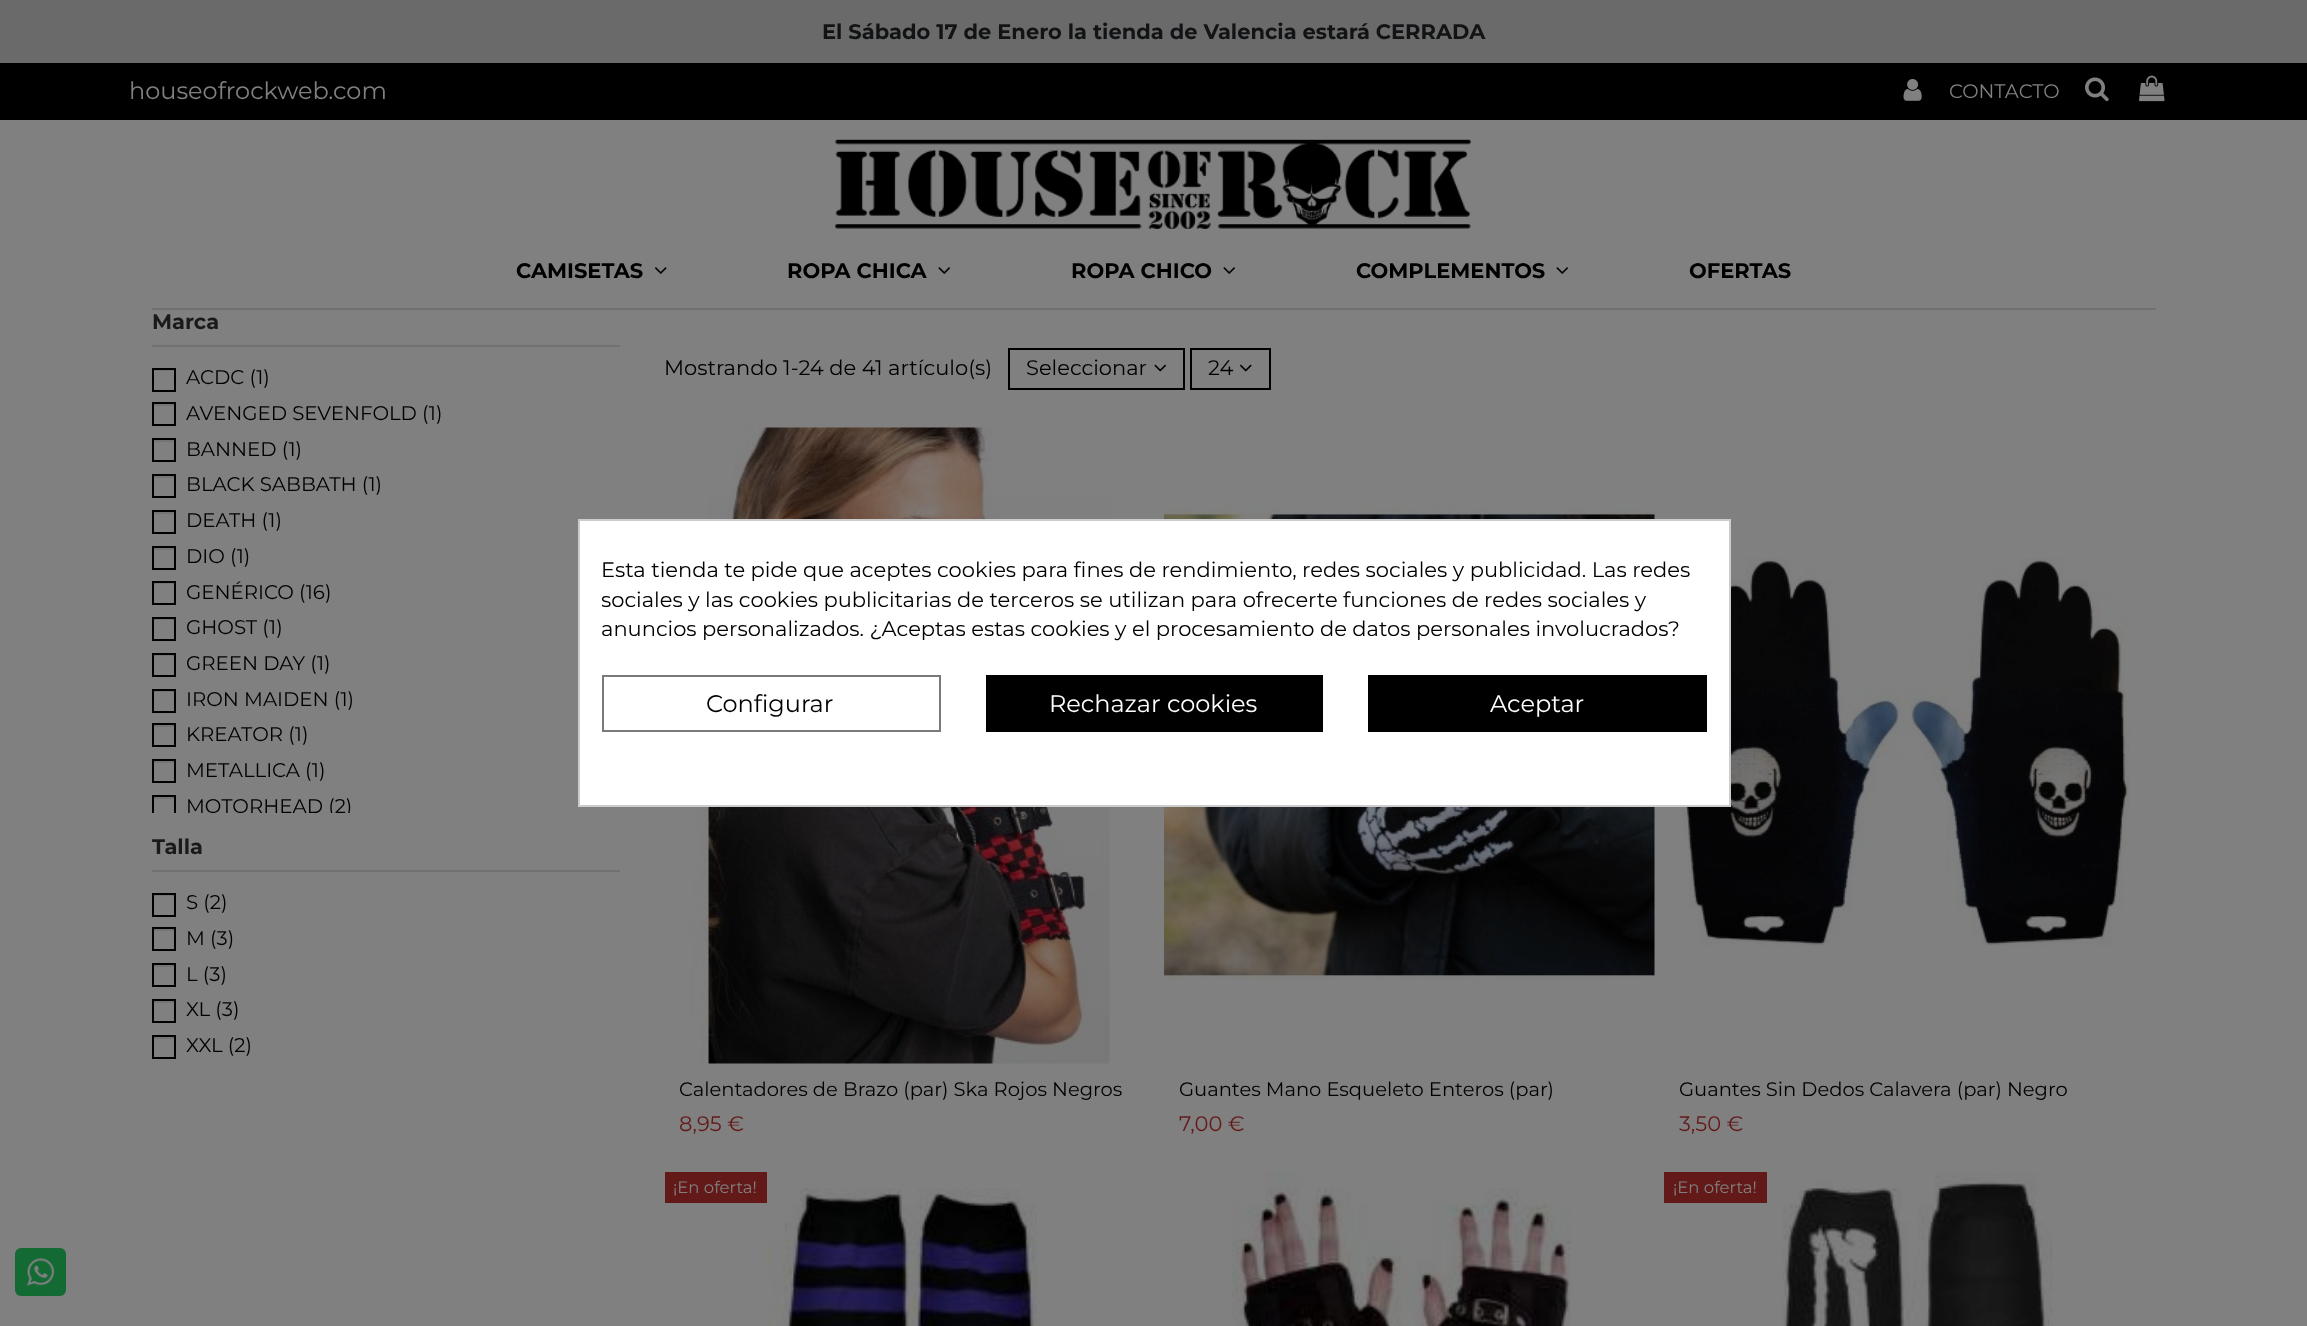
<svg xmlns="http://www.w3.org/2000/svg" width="2307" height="1326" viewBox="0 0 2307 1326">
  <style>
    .t1 { font: bold 21px Montserrat; fill: #111315; }
    .t2 { font: 24px Montserrat; fill: #808080; }
    .t3 { font: 19.5px Montserrat; fill: #808080; }
    .t4 { font: bold 21px Montserrat; fill: #000; }
    .t5 { font: bold 21px Montserrat; fill: #1a1a1a; }
    .t6 { font: 19.75px Montserrat; fill: #000; }
    .t7 { font: 21px Montserrat; fill: #000; }
    .t8 { font: 19.5px Montserrat; fill: #000; }
    .t9 { font: 21px Montserrat; fill: #641919; }
    .t10 { font: 16.5px Montserrat; fill: #808080; }
    .t11 { font: 24px Montserrat; fill: #000; }
    .t12 { font: 24px Montserrat; fill: #fff; }
  </style>
  <defs>
    <clipPath id="clip1"><rect x="152" y="363" width="468" height="450"/></clipPath>
    <clipPath id="clip2"><rect x="602" y="557" width="1105" height="88"/></clipPath>
  </defs>
  <rect width="100%" height="100%" fill="#808080"/>
  <rect x="0" y="0" width="2307" height="63" fill="#6a6a6a"/>
  <text x="822" y="39" class="t1">El Sábado 17 de Enero la tienda de Valencia estará CERRADA</text>
  <rect x="0" y="63" width="2307" height="57" fill="#000"/>
  <text x="129" y="99" class="t2">houseofrockweb.com</text>
  <image x="1903" y="79" width="19" height="22" href="images/1.png"/>
  <text x="1949" y="98" class="t3">CONTACTO</text>
  <image x="2085" y="77" width="24" height="25" href="images/2.png"/>
  <image x="2139" y="75" width="26" height="27" href="images/3.png"/>
  <image x="835" y="139" width="636" height="90" href="images/4.png"/>
  <rect x="152" y="308" width="2004" height="2" fill="#707070"/>
  <text x="516" y="278" class="t4">CAMISETAS</text>
  <image x="655" y="267" width="12" height="7" href="images/5.png"/>
  <text x="787" y="278" class="t4">ROPA CHICA</text>
  <image x="938" y="267" width="12" height="7" href="images/6.png"/>
  <text x="1071" y="278" class="t4">ROPA CHICO</text>
  <image x="1223" y="267" width="12" height="7" href="images/6.png"/>
  <text x="1356" y="278" class="t4">COMPLEMENTOS</text>
  <image x="1556" y="267" width="12" height="7" href="images/6.png"/>
  <text x="1689" y="278" class="t4">OFERTAS</text>
  <rect x="152" y="345" width="468" height="2" fill="#727272"/>
  <text x="152" y="329" class="t5">Marca</text>
  <rect x="153" y="370" width="21" height="1" fill="#747474"/>
  <rect x="153" y="369" width="22" height="22" fill="none" stroke="#000" stroke-width="2"/>
  <text x="186" y="384" class="t6">ACDC (1)</text>
  <rect x="153" y="404" width="21" height="2" fill="#747474"/>
  <rect x="153" y="403" width="22" height="22" fill="none" stroke="#000" stroke-width="2"/>
  <text x="186" y="420" class="t6">AVENGED SEVENFOLD (1)</text>
  <rect x="153" y="440" width="21" height="2" fill="#747474"/>
  <rect x="153" y="439" width="22" height="22" fill="none" stroke="#000" stroke-width="2"/>
  <text x="186" y="456" class="t6">BANNED (1)</text>
  <rect x="153" y="476" width="21" height="2" fill="#747474"/>
  <rect x="153" y="475" width="22" height="22" fill="none" stroke="#000" stroke-width="2"/>
  <text x="186" y="491" class="t6">BLACK SABBATH (1)</text>
  <rect x="153" y="512" width="21" height="2" fill="#747474"/>
  <rect x="153" y="511" width="22" height="22" fill="none" stroke="#000" stroke-width="2"/>
  <text x="186" y="527" class="t6">DEATH (1)</text>
  <rect x="153" y="548" width="21" height="2" fill="#747474"/>
  <rect x="153" y="547" width="22" height="22" fill="none" stroke="#000" stroke-width="2"/>
  <text x="186" y="563" class="t6">DIO (1)</text>
  <rect x="153" y="583" width="21" height="1" fill="#747474"/>
  <rect x="153" y="582" width="22" height="22" fill="none" stroke="#000" stroke-width="2"/>
  <text x="186" y="599" class="t6">GENÉRICO (16)</text>
  <rect x="153" y="619" width="21" height="1" fill="#747474"/>
  <rect x="153" y="618" width="22" height="22" fill="none" stroke="#000" stroke-width="2"/>
  <text x="186" y="634" class="t6">GHOST (1)</text>
  <rect x="153" y="655" width="21" height="1" fill="#747474"/>
  <rect x="153" y="654" width="22" height="22" fill="none" stroke="#000" stroke-width="2"/>
  <text x="186" y="670" class="t6">GREEN DAY (1)</text>
  <rect x="153" y="691" width="21" height="1" fill="#747474"/>
  <rect x="153" y="690" width="22" height="22" fill="none" stroke="#000" stroke-width="2"/>
  <text x="186" y="706" class="t6">IRON MAIDEN (1)</text>
  <rect x="153" y="725" width="21" height="2" fill="#747474"/>
  <rect x="153" y="724" width="22" height="22" fill="none" stroke="#000" stroke-width="2"/>
  <text x="186" y="741" class="t6">KREATOR (1)</text>
  <rect x="153" y="761" width="21" height="2" fill="#747474"/>
  <rect x="153" y="760" width="22" height="22" fill="none" stroke="#000" stroke-width="2"/>
  <text x="186" y="777" class="t6">METALLICA (1)</text>
  <rect x="153" y="797" width="21" height="2" fill="#747474"/>
  <g clip-path="url(#clip1)">
    <rect x="153" y="796" width="22" height="22" fill="none" stroke="#000" stroke-width="2"/>
    <text x="186" y="813" class="t6">MOTORHEAD (2)</text>
  </g>
  <rect x="152" y="870" width="468" height="2" fill="#727272"/>
  <text x="152" y="854" class="t5">Talla</text>
  <rect x="153" y="895" width="21" height="1" fill="#747474"/>
  <rect x="153" y="894" width="22" height="22" fill="none" stroke="#000" stroke-width="2"/>
  <text x="186" y="909" class="t6">S (2)</text>
  <rect x="153" y="929" width="21" height="2" fill="#747474"/>
  <rect x="153" y="928" width="22" height="22" fill="none" stroke="#000" stroke-width="2"/>
  <text x="186" y="945" class="t6">M (3)</text>
  <rect x="153" y="965" width="21" height="2" fill="#747474"/>
  <rect x="153" y="964" width="22" height="22" fill="none" stroke="#000" stroke-width="2"/>
  <text x="186" y="981" class="t6">L (3)</text>
  <rect x="153" y="1001" width="21" height="2" fill="#747474"/>
  <rect x="153" y="1000" width="22" height="22" fill="none" stroke="#000" stroke-width="2"/>
  <text x="186" y="1016" class="t6">XL (3)</text>
  <rect x="153" y="1037" width="21" height="2" fill="#747474"/>
  <rect x="153" y="1036" width="22" height="22" fill="none" stroke="#000" stroke-width="2"/>
  <text x="186" y="1052" class="t6">XXL (2)</text>
  <text x="664" y="375" class="t7">Mostrando 1-24 de 41 artículo(s)</text>
  <rect x="1009" y="349" width="175" height="40" fill="none" stroke="#000" stroke-width="2"/>
  <text x="1026" y="375" class="t7">Seleccionar</text>
  <image x="1154" y="364" width="13" height="8" href="images/7.png"/>
  <rect x="1191" y="349" width="79" height="40" fill="none" stroke="#000" stroke-width="2"/>
  <text x="1208" y="375" class="t7">24</text>
  <image x="1239" y="364" width="13" height="8" href="images/8.png"/>
  <image x="690" y="427" width="420" height="637" href="images/9.png"/>
  <text x="679" y="1096" class="t8">Calentadores de Brazo (par) Ska Rojos Negros</text>
  <text x="679" y="1131" class="t9">8,95 €</text>
  <image x="1164" y="505" width="491" height="476" href="images/10.png"/>
  <text x="1179" y="1096" class="t8">Guantes Mano Esqueleto Enteros (par)</text>
  <text x="1179" y="1131" class="t9">7,00 €</text>
  <image x="1681" y="558" width="449" height="388" href="images/11.png"/>
  <text x="1679" y="1096" class="t8">Guantes Sin Dedos Calavera (par) Negro</text>
  <text x="1679" y="1131" class="t9">3,50 €</text>
  <image x="765" y="1188" width="272" height="138" href="images/12.png"/>
  <rect x="665" y="1172" width="102" height="31" fill="#641919"/>
  <text x="673" y="1193" class="t10">¡En oferta!</text>
  <image x="1231" y="1171" width="340" height="155" href="images/13.png"/>
  <rect x="1664" y="1172" width="103" height="31" fill="#641919"/>
  <text x="1673" y="1193" class="t10">¡En oferta!</text>
  <image x="1782" y="1172" width="271" height="154" href="images/14.png"/>
  <rect x="579" y="520" width="1151" height="286" fill="#fff" stroke="#ccc" stroke-width="2"/>
  <text x="601" y="577" class="t7">Esta tienda te pide que aceptes cookies para fines de rendimiento, redes sociales y publicidad. Las redes</text>
  <g clip-path="url(#clip2)">
    <text x="601" y="607" class="t7">sociales y las cookies publicitarias de terceros se utilizan para ofrecerte funciones de redes sociales y</text>
  </g>
  <text x="601" y="636" class="t7">anuncios personalizados. ¿Aceptas estas cookies y el procesamiento de datos personales involucrados?</text>
  <rect x="603" y="676" width="337" height="55" fill="none" stroke="#7a7a7a" stroke-width="2"/>
  <text x="706" y="712" class="t11">Configurar</text>
  <rect x="986" y="675" width="337" height="57" fill="#000"/>
  <text x="1049" y="712" class="t12">Rechazar cookies</text>
  <rect x="1368" y="675" width="339" height="57" fill="#000"/>
  <text x="1490" y="712" class="t12">Aceptar</text>
  <rect x="15" y="1248" width="51" height="48" rx="6" fill="#136a33"/>
  <image x="27" y="1258" width="27" height="28" href="images/15.png"/>
</svg>
